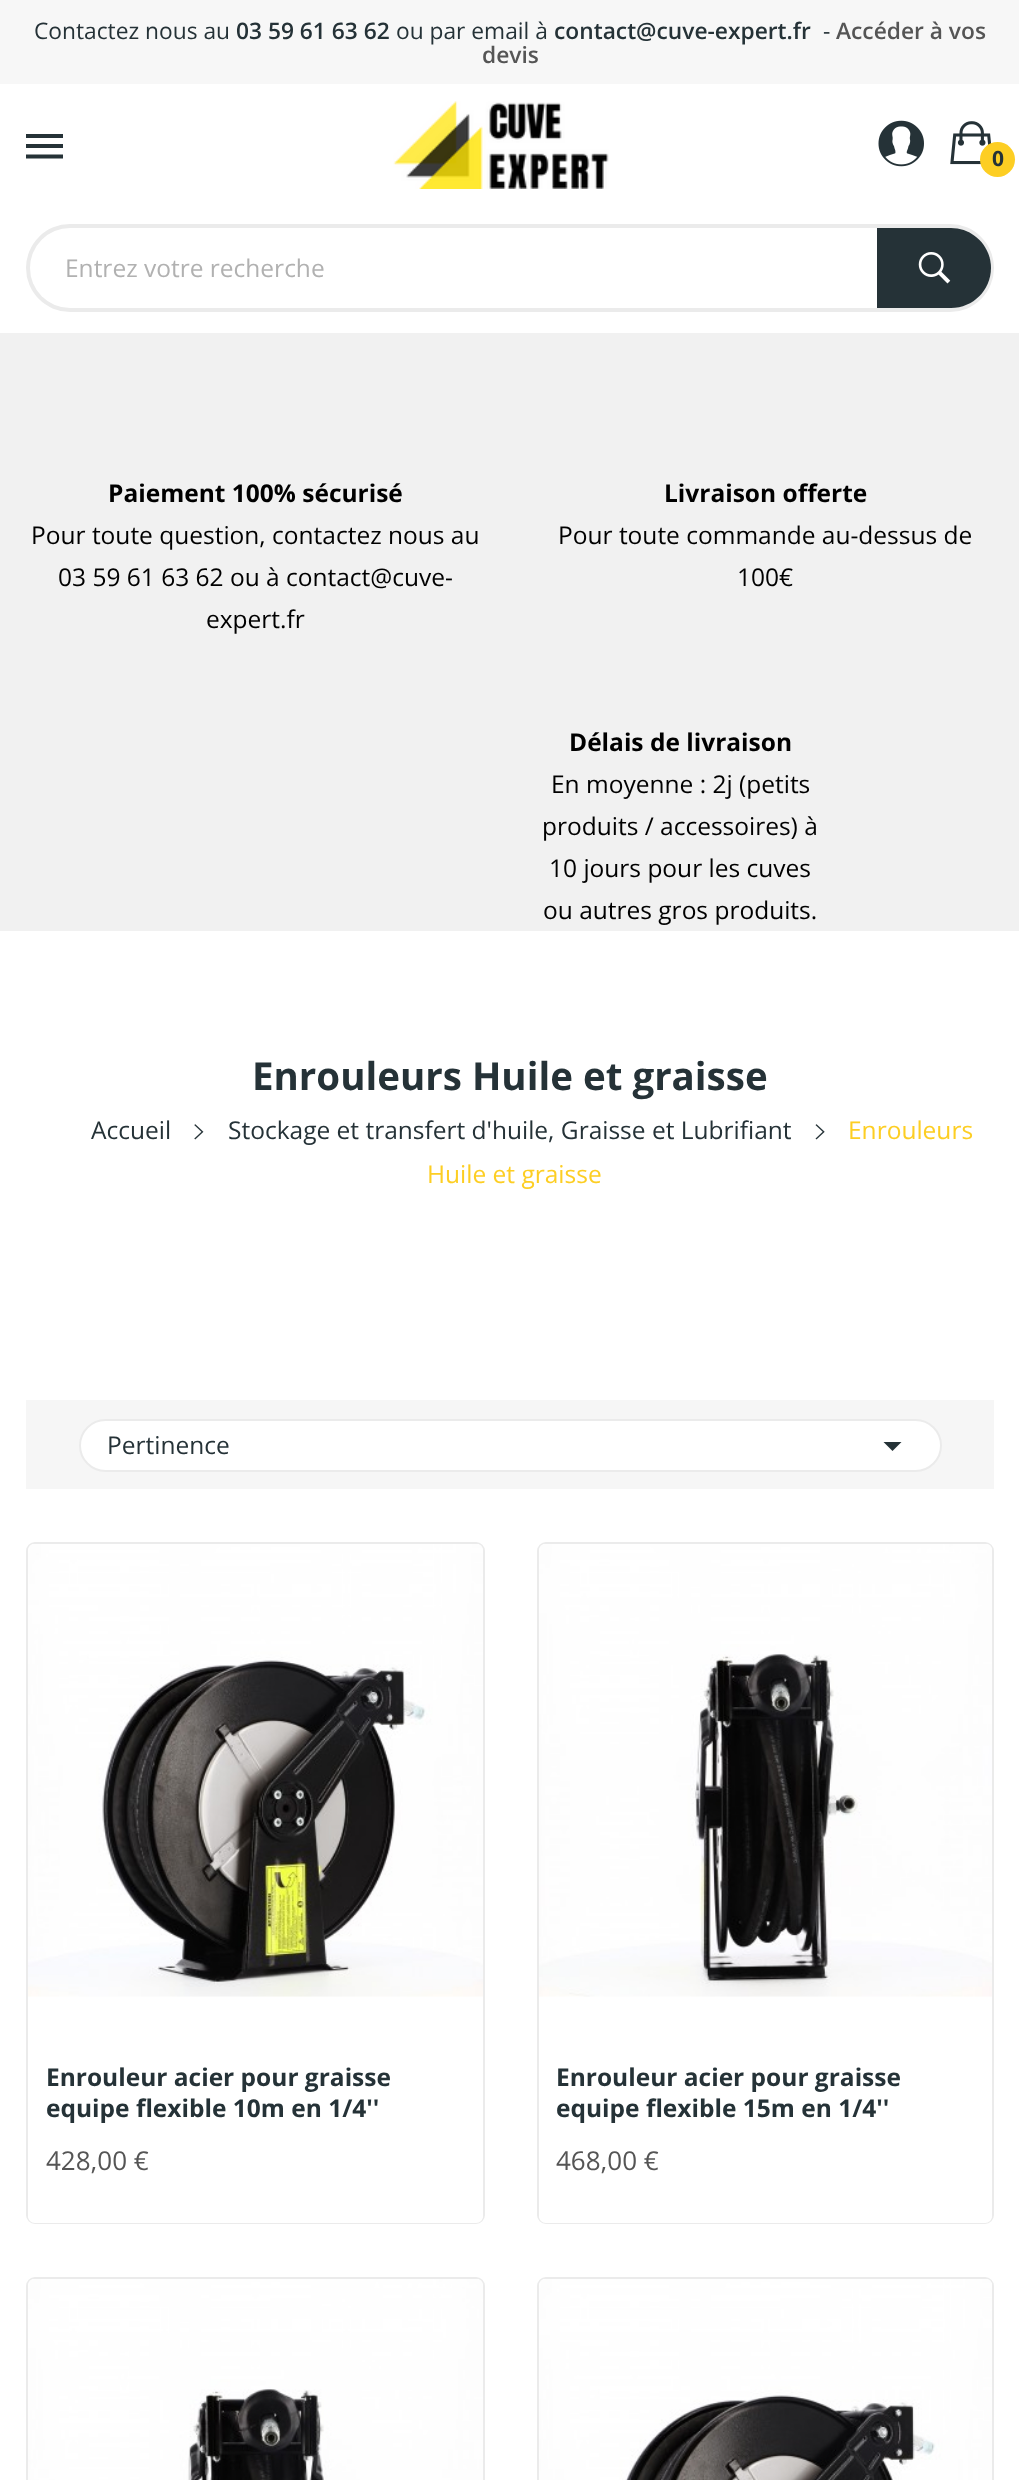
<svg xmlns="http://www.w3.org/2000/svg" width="1019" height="2480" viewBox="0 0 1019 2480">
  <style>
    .t1 { font: 22.75px Open Sans; fill: #253237; }
    .t2 { font: 600 22.75px Open Sans; fill: #253237; }
    .t3 { font: 600 22.75px Open Sans; fill: #555; }
    .t4 { font: bold 21px Open Sans; fill: #253237; }
    .t5 { font: 24.5px Open Sans; fill: #b1b1b1; }
    .t6 { font: bold 24.5px Open Sans; fill: #000; }
    .t7 { font: 24.5px Open Sans; fill: #000; }
    .t8 { font: bold 38.5px Open Sans; fill: #253237; }
    .t9 { font: 24.5px Open Sans; fill: #253237; }
    .t10 { font: 24.5px Open Sans; fill: #fdce23; }
    .t11 { font: bold 24.5px Open Sans; fill: #253237; }
    .t12 { font: 26px Open Sans; fill: #555; }
  </style>
  <rect width="100%" height="100%" fill="#fff"/>
  <rect x="0" y="333" width="1019" height="598" fill="#f1f1f1"/>
  <rect x="0" y="0" width="1019" height="84" fill="#f7f7f7"/>
  <text x="34" y="39" class="t1">Contactez nous au</text>
  <text x="236" y="39" class="t2">03 59 61 63 62</text>
  <text x="396" y="39" class="t1">ou par email à</text>
  <text x="554" y="39" class="t2">contact@cuve-expert.fr</text>
  <text x="823" y="39" class="t1">-</text>
  <text x="836" y="39" class="t3">Accéder à vos</text>
  <text x="482" y="63" class="t3">devis</text>
  <path d="M26 158.5V154.5H63V158.5ZM26 148V144H63V148ZM26 134H63V138H26Z" fill="#253237"/>
  <image x="393" y="101" width="216" height="88" href="images/1.png"/>
  <image x="878" y="120" width="46" height="47" href="images/2.png"/>
  <image x="950" y="121" width="42" height="44" href="images/3.png"/>
  <circle cx="997.5" cy="159.5" r="17.5" fill="#fdce23"/>
  <text x="992" y="166" class="t4">0</text>
  <rect x="26" y="224" width="968" height="88" rx="44" fill="#ebebeb"/>
  <rect x="30" y="228" width="961" height="80" rx="40" fill="#fff"/>
  <text x="65" y="277" class="t5">Entrez votre recherche</text>
  <path d="M877 228H951C973 228 991 246 991 268C991 290 973 308 951 308H877Z" fill="#253237"/>
  <image x="918" y="252" width="33" height="32" href="images/4.png"/>
  <text x="108" y="502" class="t6">Paiement 100% sécurisé</text>
  <text x="31" y="544" class="t7">Pour toute question, contactez nous au</text>
  <text x="58" y="586" class="t7">03 59 61 63 62 ou à contact@cuve-</text>
  <text x="206" y="628" class="t7">expert.fr</text>
  <text x="664" y="502" class="t6">Livraison offerte</text>
  <text x="558" y="544" class="t7">Pour toute commande au-dessus de</text>
  <text x="737" y="586" class="t7">100€</text>
  <text x="569" y="751" class="t6">Délais de livraison</text>
  <text x="551" y="793" class="t7">En moyenne : 2j (petits</text>
  <text x="542" y="835" class="t7">produits / accessoires) à</text>
  <text x="549" y="877" class="t7">10 jours pour les cuves</text>
  <text x="543" y="919" class="t7">ou autres gros produits.</text>
  <text x="252" y="1090" class="t8">Enrouleurs Huile et graisse</text>
  <text x="91" y="1139" class="t9">Accueil</text>
  <image x="194" y="1124" width="10" height="16" href="images/5.png"/>
  <text x="228" y="1139" class="t9">Stockage et transfert d'huile, Graisse et Lubrifiant</text>
  <image x="815" y="1124" width="10" height="16" href="images/6.png"/>
  <text x="848" y="1139" class="t10">Enrouleurs</text>
  <text x="427" y="1183" class="t10">Huile et graisse</text>
  <rect x="26" y="1400" width="968" height="89" fill="#f6f6f6"/>
  <rect x="80" y="1420" width="861" height="51" rx="25.5" fill="#fff" stroke="#ebebeb" stroke-width="2"/>
  <text x="107" y="1454" class="t9">Pertinence</text>
  <path d="M883.5 1442H901.5L892.5 1451Z" fill="#253237"/>
  <rect x="27" y="1543" width="457" height="680" rx="8" fill="none" stroke="#ebebeb" stroke-width="2"/>
  <image x="28" y="1544" width="455" height="453" href="images/7.png"/>
  <path d="M28 1997H483V2216C483 2220 480 2223 476 2223H35C31 2223 28 2220 28 2216Z" fill="#fff"/>
  <text x="46" y="2086" class="t11">Enrouleur acier pour graisse</text>
  <text x="46" y="2117" class="t11">equipe flexible 10m en 1/4''</text>
  <text x="46" y="2170" class="t12">428,00 €</text>
  <rect x="538" y="1543" width="455" height="680" rx="8" fill="none" stroke="#ebebeb" stroke-width="2"/>
  <image x="539" y="1544" width="453" height="453" href="images/8.png"/>
  <path d="M539 1997H992V2216C992 2220 989 2223 985 2223H546C542 2223 539 2220 539 2216Z" fill="#fff"/>
  <text x="556" y="2086" class="t11">Enrouleur acier pour graisse</text>
  <text x="556" y="2117" class="t11">equipe flexible 15m en 1/4''</text>
  <text x="556" y="2170" class="t12">468,00 €</text>
  <rect x="27" y="2278" width="457" height="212" rx="8" fill="none" stroke="#ebebeb" stroke-width="2"/>
  <image x="28" y="2279" width="455" height="201" href="images/9.png"/>
  <rect x="538" y="2278" width="455" height="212" rx="8" fill="none" stroke="#ebebeb" stroke-width="2"/>
  <image x="539" y="2279" width="453" height="201" href="images/10.png"/>
</svg>
